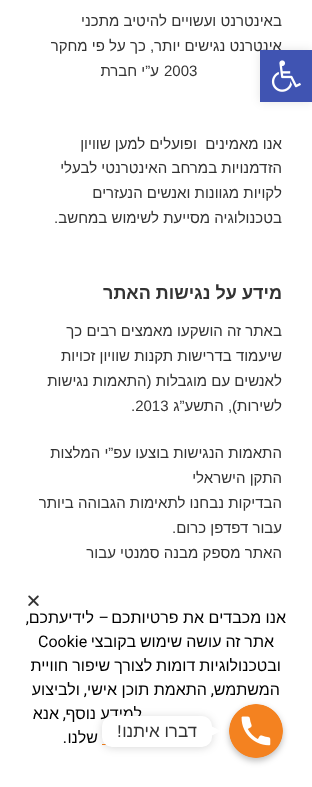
<svg xmlns="http://www.w3.org/2000/svg" width="312" height="787" viewBox="0 0 312 787">
  <style>
    .t1 { font: 15px Liberation Sans; direction: rtl; fill: #333; }
    .t2 { font: 15px Liberation Sans; fill: #333; }
    .t3 { font: bold 18px Liberation Sans; direction: rtl; fill: #333; }
    .t4 { font: 16px Liberation Sans; direction: rtl; fill: #000; }
    .t5 { font: 16px Roboto; direction: rtl; fill: #000; }
    .t6 { font: 16px Roboto; fill: #000; }
    .t7 { font: 17px Liberation Sans; direction: rtl; fill: #333; }
    .t8 { font: 17px Liberation Sans; fill: #333; }
  </style>
  <rect width="100%" height="100%" fill="#fff"/>
  <text x="282" y="26" class="t1">באינטרנט ועשויים להיטיב מתכני</text>
  <text x="282" y="51" class="t1">אינטרנט נגישים יותר, כך על פי מחקר</text>
  <text x="164" y="76" class="t2">2003</text>
  <text x="159" y="76" class="t1">ע”י חברת</text>
  <text x="282" y="149" class="t1" xml:space="preserve">אנו מאמינים  ופועלים למען שוויון</text>
  <text x="282" y="173" class="t1">הזדמנויות במרחב האינטרנטי לבעלי</text>
  <text x="282" y="198" class="t1">לקויות מגוונות ואנשים הנעזרים</text>
  <text x="282" y="223" class="t1">בטכנולוגיה מסייעת לשימוש במחשב.</text>
  <text x="282" y="299" class="t3">מידע על נגישות האתר</text>
  <text x="282" y="336" class="t1">באתר זה הושקעו מאמצים רבים כך</text>
  <text x="282" y="361" class="t1">שיעמוד בדרישות תקנות שוויון זכויות</text>
  <text x="282" y="386" class="t1">לאנשים עם מוגבלות (התאמות נגישות</text>
  <text x="282" y="411" class="t1">לשירות), התשע”ג</text>
  <text x="131" y="411" class="t2">.2013</text>
  <text x="282" y="458" class="t1">התאמות הנגישות בוצעו עפ”י המלצות</text>
  <text x="282" y="483" class="t1">התקן הישראלי</text>
  <text x="282" y="508" class="t1">הבדיקות נבחנו לתאימות הגבוהה ביותר</text>
  <text x="282" y="533" class="t1">עבור דפדפן כרום.</text>
  <text x="282" y="558" class="t1">האתר מספק מבנה סמנטי עבור</text>
  <rect x="260" y="50" width="52" height="52" fill="#0000001a" filter="blur(5px)"/>
  <rect x="260" y="50" width="52" height="52" fill="#4054b2"/>
  <image x="271" y="60" width="30" height="32" href="images/1.png"/>
  <image x="28" y="595" width="11" height="11" href="images/2.png"/>
  <text x="286" y="623" class="t4">אנו מכבדים את פרטיותכם</text>
  <text x="109" y="623" class="t5">–</text>
  <text x="94" y="623" class="t4">לידיעתכם</text>
  <text x="29" y="623" class="t5">,</text>
  <text x="274" y="647" word-spacing="-0.5" class="t4">אתר זה עושה שימוש בקובצי</text>
  <text x="38" y="647" class="t6">Cookie</text>
  <text x="281" y="671" word-spacing="-0.5" class="t4">ובטכנולוגיות דומות לצורך שיפור חוויית</text>
  <text x="280" y="695" class="t4">המשתמש</text>
  <text x="214" y="695" class="t5">,</text>
  <text x="207" y="695" class="t4">התאמת תוכן אישי</text>
  <text x="87" y="695" class="t5">,</text>
  <text x="80" y="695" class="t4">ולביצוע</text>
  <text x="142" y="719" class="t4">למידע נוסף</text>
  <text x="59" y="719" class="t4">אנא</text>
  <text x="66" y="719" class="t5">,</text>
  <text x="98" y="743" class="t4">שלנו</text>
  <text x="67" y="743" class="t5">.</text>
  <rect x="102" y="744" width="4" height="1" fill="#f5821f"/>
  <rect x="229" y="707" width="54" height="54" rx="27" fill="#00000040" filter="blur(3px)"/>
  <image x="229" y="704" width="54" height="54" href="images/3.png"/>
  <rect x="102" y="717" width="110" height="31" rx="10" fill="#00000026" filter="blur(4px)"/>
  <rect x="102" y="716" width="110" height="31" rx="10" fill="#fff"/>
  <path d="M211 736V726L221 731Z" fill="#fff"/>
  <text x="197" y="737" class="t7">דברו איתנו</text>
  <text x="117" y="737" class="t8">!</text>
</svg>
